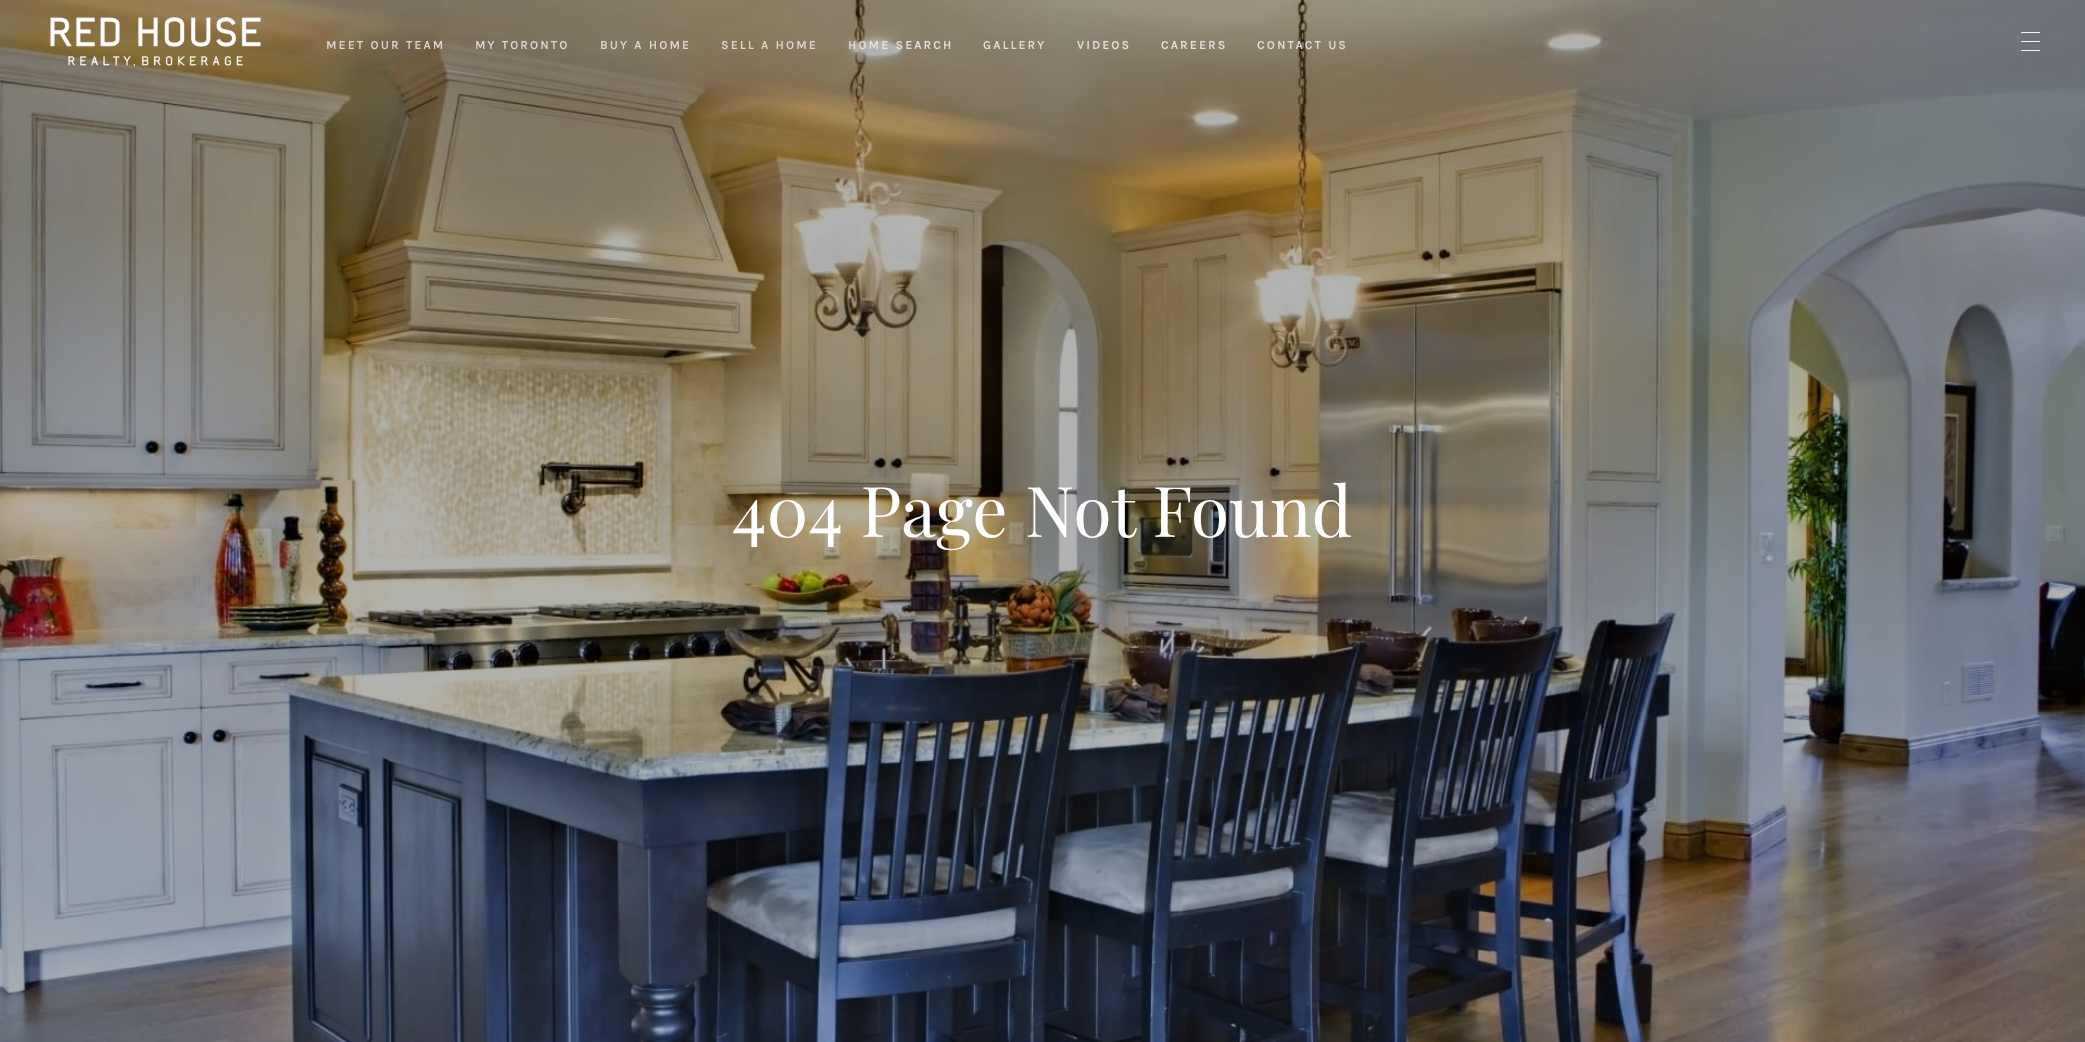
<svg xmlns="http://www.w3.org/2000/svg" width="2085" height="1042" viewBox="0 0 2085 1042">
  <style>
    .t1 { font: bold 12px Karla; letter-spacing: 2.4px; fill: #ded9d2; }
    .t2 { font: bold 12px Karla; letter-spacing: 2.4px; fill: #e5e3df; }
    .t3 { font: bold 12px Karla; letter-spacing: 2.4px; fill: #e1dfd9; }
    .t4 { font: 70px Playfair Display; fill: #fff; }
  </style>
  <rect width="100%" height="100%" fill="#fff"/>
  <image x="0" y="0" width="2085" height="1042" href="images/2.png"/>
  <image x="50" y="17" width="211" height="50" href="images/1.png"/>
  <text x="326" y="49" class="t1">MEET OUR TEAM</text>
  <text x="475" y="49" class="t1">MY TORONTO</text>
  <text x="600" y="49" class="t1">BUY A HOME</text>
  <text x="721" y="49" class="t1">SELL A HOME</text>
  <text x="848" y="49" class="t2">HOME SEARCH</text>
  <text x="983" y="49" class="t3">GALLERY</text>
  <text x="1077" y="49" class="t2">VIDEOS</text>
  <text x="1161" y="49" class="t2">CAREERS</text>
  <text x="1257" y="49" class="t3">CONTACT US</text>
  <rect x="2021" y="32" width="19" height="1" fill="#ffffffe6"/>
  <rect x="2021" y="41" width="19" height="1" fill="#ffffffe6"/>
  <rect x="2021" y="50" width="19" height="1" fill="#ffffffe6"/>
  <text x="732" y="537" class="t4">404 Page Not Found</text>
</svg>
